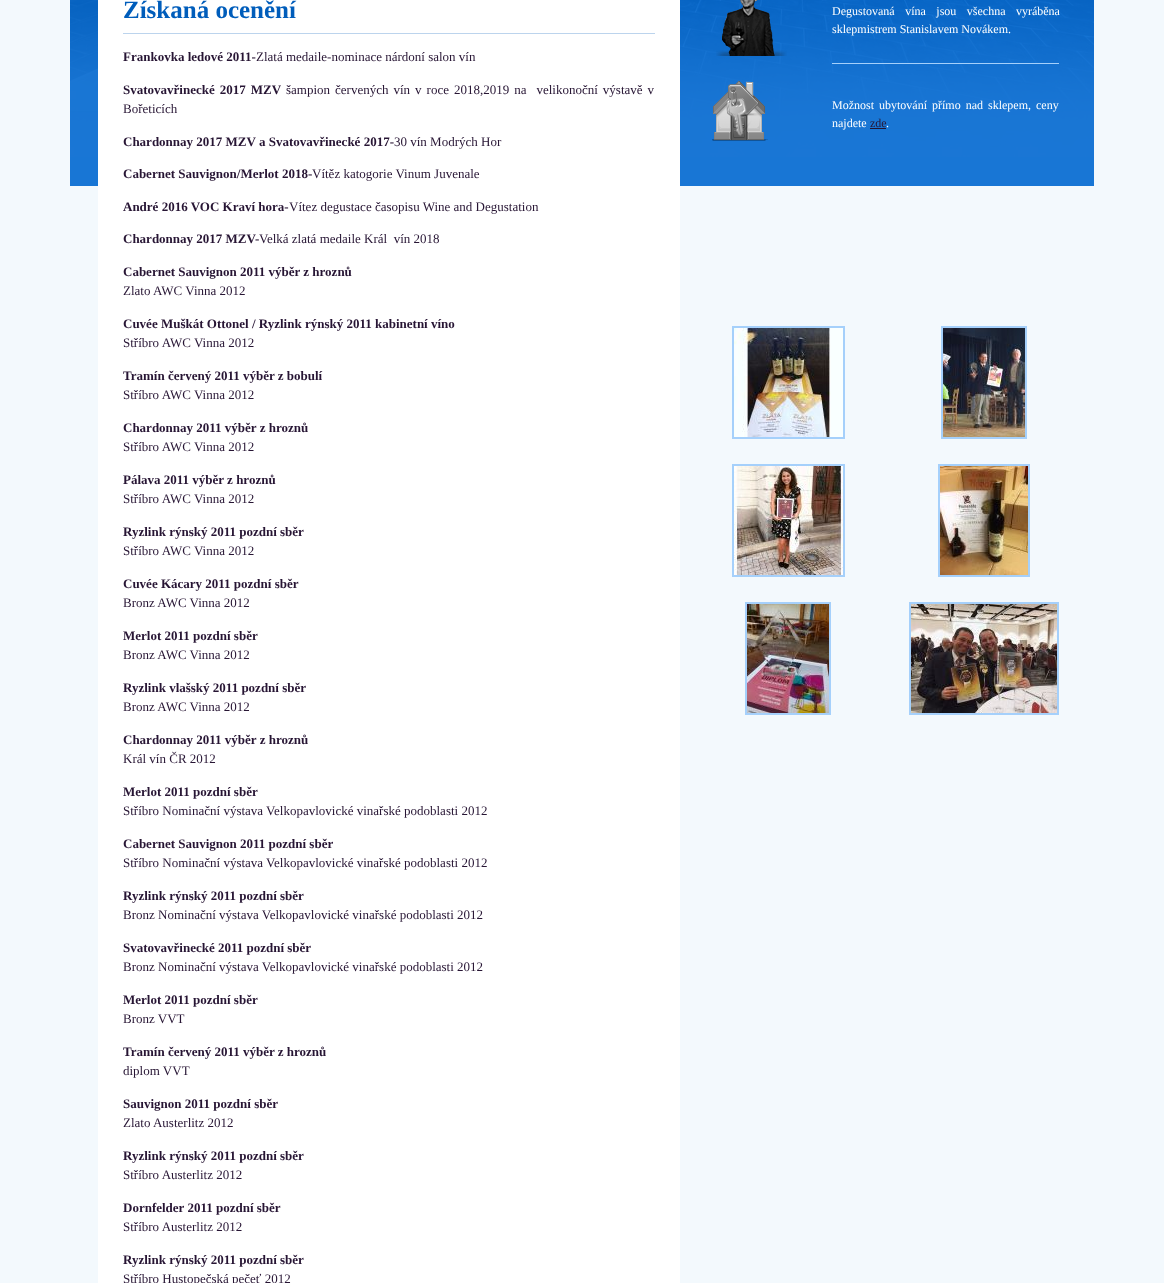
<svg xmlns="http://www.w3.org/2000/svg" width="1164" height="1283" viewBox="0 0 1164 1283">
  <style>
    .t1 { font: bold 25px Liberation Serif; fill: #005dbb; }
    .t2 { font: bold 13px Liberation Serif; fill: #271534; }
    .t3 { font: 13px Liberation Serif; fill: #271534; }
    .t4 { font: 12px Liberation Serif; fill: #fff; }
    .t5 { font: 12px Liberation Serif; fill: #271534; }
  </style>
  <rect width="100%" height="100%" fill="#f3f9fd"/>
  <rect x="70" y="157" width="1024" height="29" fill="#1876d5"/>
  <image x="70" y="0" width="1024" height="157" href="images/1.png"/>
  <rect x="98" y="0" width="582" height="1283" fill="#fff"/>
  <rect x="123" y="33" width="532" height="1" fill="#bcd4ed"/>
  <text x="123" y="18" class="t1">Získaná ocenění</text>
  <text x="123" y="61" class="t2">Frankovka ledové 2011-</text>
  <text x="256" y="61" class="t3">Zlatá medaile-nominace nárdoní salon vín</text>
  <text x="123" y="94" word-spacing="1.75" class="t2">Svatovavřinecké 2017 MZV</text>
  <text x="286" y="94" word-spacing="1.75" class="t3" xml:space="preserve">šampion červených vín v roce 2018,2019 na  velikonoční výstavě v</text>
  <text x="123" y="113" class="t3">Bořeticích</text>
  <text x="123" y="146" class="t2">Chardonnay 2017 MZV a Svatovavřinecké 2017-</text>
  <text x="394" y="146" class="t3">30 vín Modrých Hor</text>
  <text x="123" y="178" class="t2">Cabernet Sauvignon/Merlot 2018-</text>
  <text x="312" y="178" class="t3">Vítěz katogorie Vinum Juvenale</text>
  <text x="123" y="211" class="t2">André 2016 VOC Kraví hora-</text>
  <text x="289" y="211" class="t3">Vítez degustace časopisu Wine and Degustation</text>
  <text x="123" y="243" class="t2">Chardonnay 2017 MZV-</text>
  <text x="259" y="243" class="t3" xml:space="preserve">Velká zlatá medaile Král  vín 2018</text>
  <text x="123" y="276" class="t2">Cabernet Sauvignon 2011 výběr z hroznů</text>
  <text x="123" y="295" class="t3">Zlato AWC Vinna 2012</text>
  <text x="123" y="328" class="t2">Cuvée Muškát Ottonel / Ryzlink rýnský 2011 kabinetní víno</text>
  <text x="123" y="347" class="t3">Stříbro AWC Vinna 2012</text>
  <text x="123" y="380" class="t2">Tramín červený 2011 výběr z bobulí</text>
  <text x="123" y="399" class="t3">Stříbro AWC Vinna 2012</text>
  <text x="123" y="432" class="t2">Chardonnay 2011 výběr z hroznů</text>
  <text x="123" y="451" class="t3">Stříbro AWC Vinna 2012</text>
  <text x="123" y="484" class="t2">Pálava 2011 výběr z hroznů</text>
  <text x="123" y="503" class="t3">Stříbro AWC Vinna 2012</text>
  <text x="123" y="536" class="t2">Ryzlink rýnský 2011 pozdní sběr</text>
  <text x="123" y="555" class="t3">Stříbro AWC Vinna 2012</text>
  <text x="123" y="588" class="t2">Cuvée Kácary 2011 pozdní sběr</text>
  <text x="123" y="607" class="t3">Bronz AWC Vinna 2012</text>
  <text x="123" y="640" class="t2">Merlot 2011 pozdní sběr</text>
  <text x="123" y="659" class="t3">Bronz AWC Vinna 2012</text>
  <text x="123" y="692" class="t2">Ryzlink vlašský 2011 pozdní sběr</text>
  <text x="123" y="711" class="t3">Bronz AWC Vinna 2012</text>
  <text x="123" y="744" class="t2">Chardonnay 2011 výběr z hroznů</text>
  <text x="123" y="763" class="t3">Král vín ČR 2012</text>
  <text x="123" y="796" class="t2">Merlot 2011 pozdní sběr</text>
  <text x="123" y="815" class="t3">Stříbro Nominační výstava Velkopavlovické vinařské podoblasti 2012</text>
  <text x="123" y="848" class="t2">Cabernet Sauvignon 2011 pozdní sběr</text>
  <text x="123" y="867" class="t3">Stříbro Nominační výstava Velkopavlovické vinařské podoblasti 2012</text>
  <text x="123" y="900" class="t2">Ryzlink rýnský 2011 pozdní sběr</text>
  <text x="123" y="919" class="t3">Bronz Nominační výstava Velkopavlovické vinařské podoblasti 2012</text>
  <text x="123" y="952" class="t2">Svatovavřinecké 2011 pozdní sběr</text>
  <text x="123" y="971" class="t3">Bronz Nominační výstava Velkopavlovické vinařské podoblasti 2012</text>
  <text x="123" y="1004" class="t2">Merlot 2011 pozdní sběr</text>
  <text x="123" y="1023" class="t3">Bronz VVT</text>
  <text x="123" y="1056" class="t2">Tramín červený 2011 výběr z hroznů</text>
  <text x="123" y="1075" class="t3">diplom VVT</text>
  <text x="123" y="1108" class="t2">Sauvignon 2011 pozdní sběr</text>
  <text x="123" y="1127" class="t3">Zlato Austerlitz 2012</text>
  <text x="123" y="1160" class="t2">Ryzlink rýnský 2011 pozdní sběr</text>
  <text x="123" y="1179" class="t3">Stříbro Austerlitz 2012</text>
  <text x="123" y="1212" class="t2">Dornfelder 2011 pozdní sběr</text>
  <text x="123" y="1231" class="t3">Stříbro Austerlitz 2012</text>
  <text x="123" y="1264" class="t2">Ryzlink rýnský 2011 pozdní sběr</text>
  <text x="123" y="1283" class="t3">Stříbro Hustopečská pečeť 2012</text>
  <image x="716" y="0" width="71" height="56" href="images/2.png"/>
  <text x="832" y="15" word-spacing="7.5" class="t4">Degustovaná vína jsou všechna vyráběna</text>
  <text x="832" y="33" class="t4">sklepmistrem Stanislavem Novákem.</text>
  <rect x="832" y="63" width="227" height="1" fill="#a5d0fb"/>
  <image x="712" y="81" width="56" height="60" href="images/3.png"/>
  <text x="832" y="109" word-spacing="2" class="t4">Možnost ubytování přímo nad sklepem, ceny</text>
  <text x="832" y="127" class="t4">najdete</text>
  <text x="870" y="127" class="t5">zde</text>
  <rect x="870" y="128" width="16" height="1" fill="#231531"/>
  <text x="886" y="127" class="t4">.</text>
  <rect x="733" y="327" width="111" height="111" fill="none" stroke="#a5d0fb" stroke-width="2"/>
  <image x="734" y="328" width="109" height="109" href="images/4.png"/>
  <rect x="942" y="327" width="84" height="111" fill="none" stroke="#a5d0fb" stroke-width="2"/>
  <image x="943" y="328" width="82" height="109" href="images/5.png"/>
  <rect x="733" y="465" width="111" height="111" fill="none" stroke="#a5d0fb" stroke-width="2"/>
  <image x="734" y="466" width="109" height="109" href="images/6.png"/>
  <rect x="939" y="465" width="90" height="111" fill="none" stroke="#a5d0fb" stroke-width="2"/>
  <image x="940" y="466" width="88" height="109" href="images/7.png"/>
  <rect x="746" y="603" width="84" height="111" fill="none" stroke="#a5d0fb" stroke-width="2"/>
  <image x="747" y="604" width="82" height="109" href="images/8.png"/>
  <rect x="910" y="603" width="148" height="111" fill="none" stroke="#a5d0fb" stroke-width="2"/>
  <image x="911" y="604" width="146" height="109" href="images/9.png"/>
</svg>
